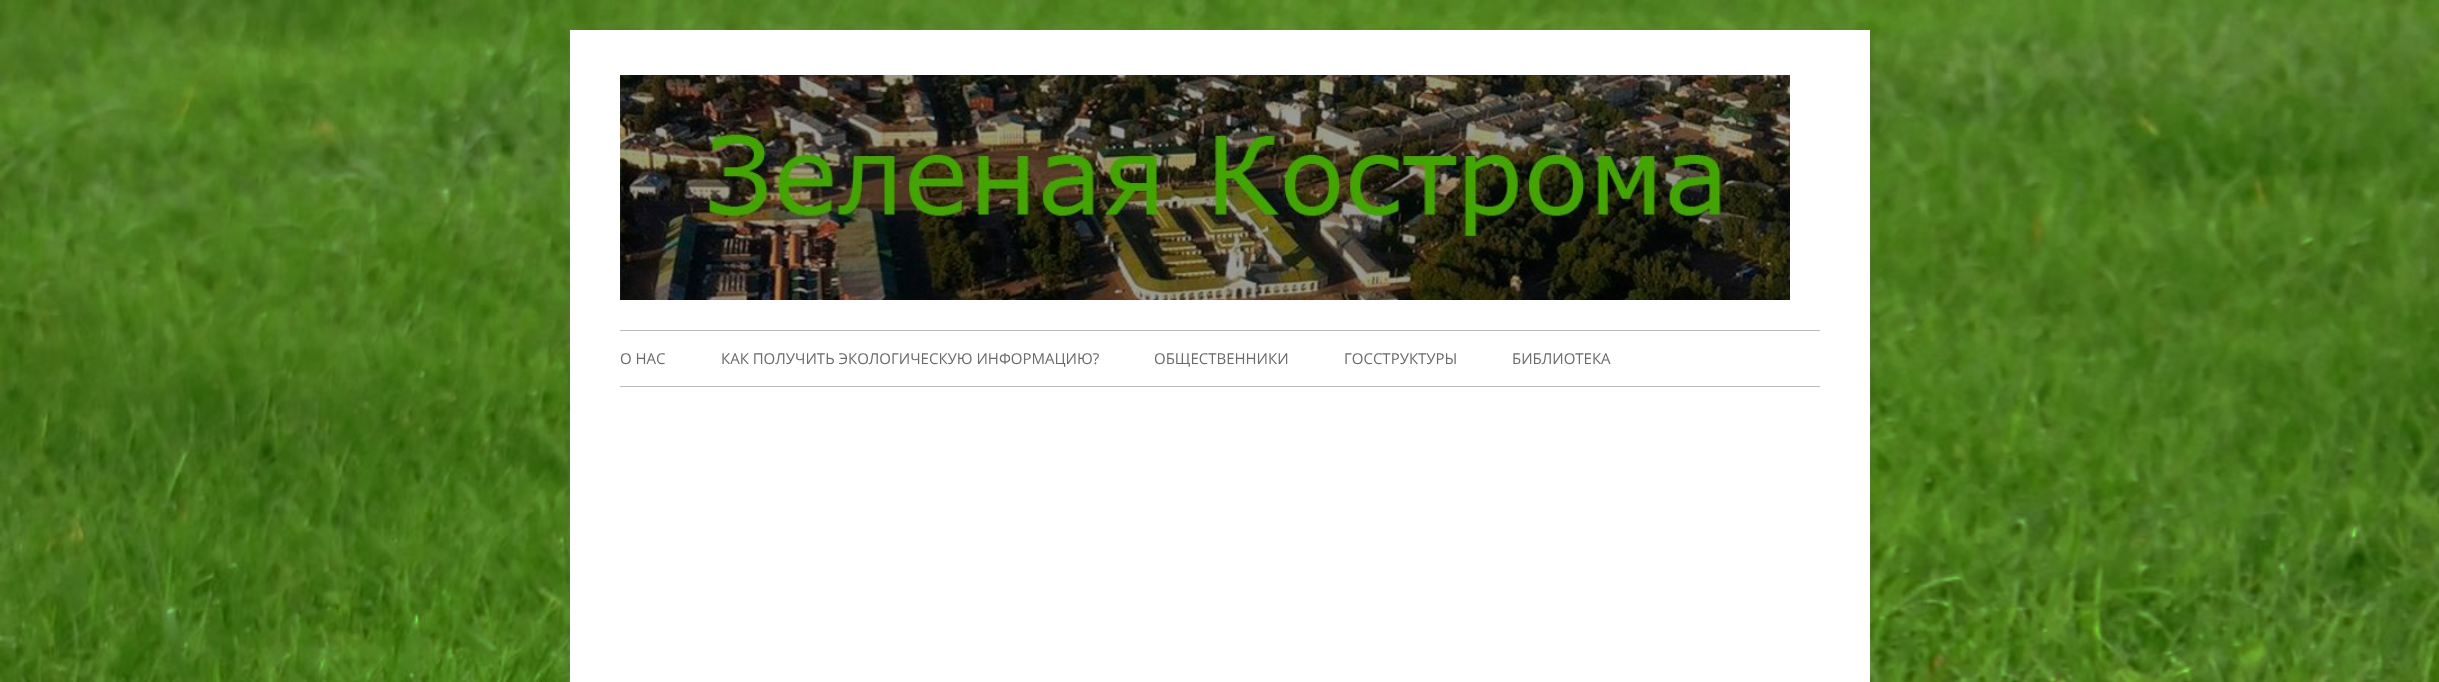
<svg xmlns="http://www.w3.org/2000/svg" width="2439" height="682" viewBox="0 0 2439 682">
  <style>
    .t1 { font: 15px Open Sans; fill: #6a6a6a; }
  </style>
  <rect width="100%" height="100%" fill="#fff"/>
  <image x="0" y="0" width="2439" height="682" href="images/1.png"/>
  <rect x="570" y="33" width="1300" height="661" fill="#6464644d" filter="blur(4px)"/>
  <rect x="570" y="30" width="1300" height="652" fill="#fff"/>
  <image x="620" y="75" width="1170" height="225" href="images/2.png"/>
  <rect x="620" y="330" width="1200" height="1" fill="#bbb"/>
  <rect x="620" y="386" width="1200" height="1" fill="#bbb"/>
  <text x="620" y="364" class="t1">О НАС</text>
  <text x="721" y="364" class="t1">КАК ПОЛУЧИТЬ ЭКОЛОГИЧЕСКУЮ ИНФОРМАЦИЮ?</text>
  <text x="1154" y="364" class="t1">ОБЩЕСТВЕННИКИ</text>
  <text x="1344" y="364" class="t1">ГОССТРУКТУРЫ</text>
  <text x="1512" y="364" class="t1">БИБЛИОТЕКА</text>
</svg>
